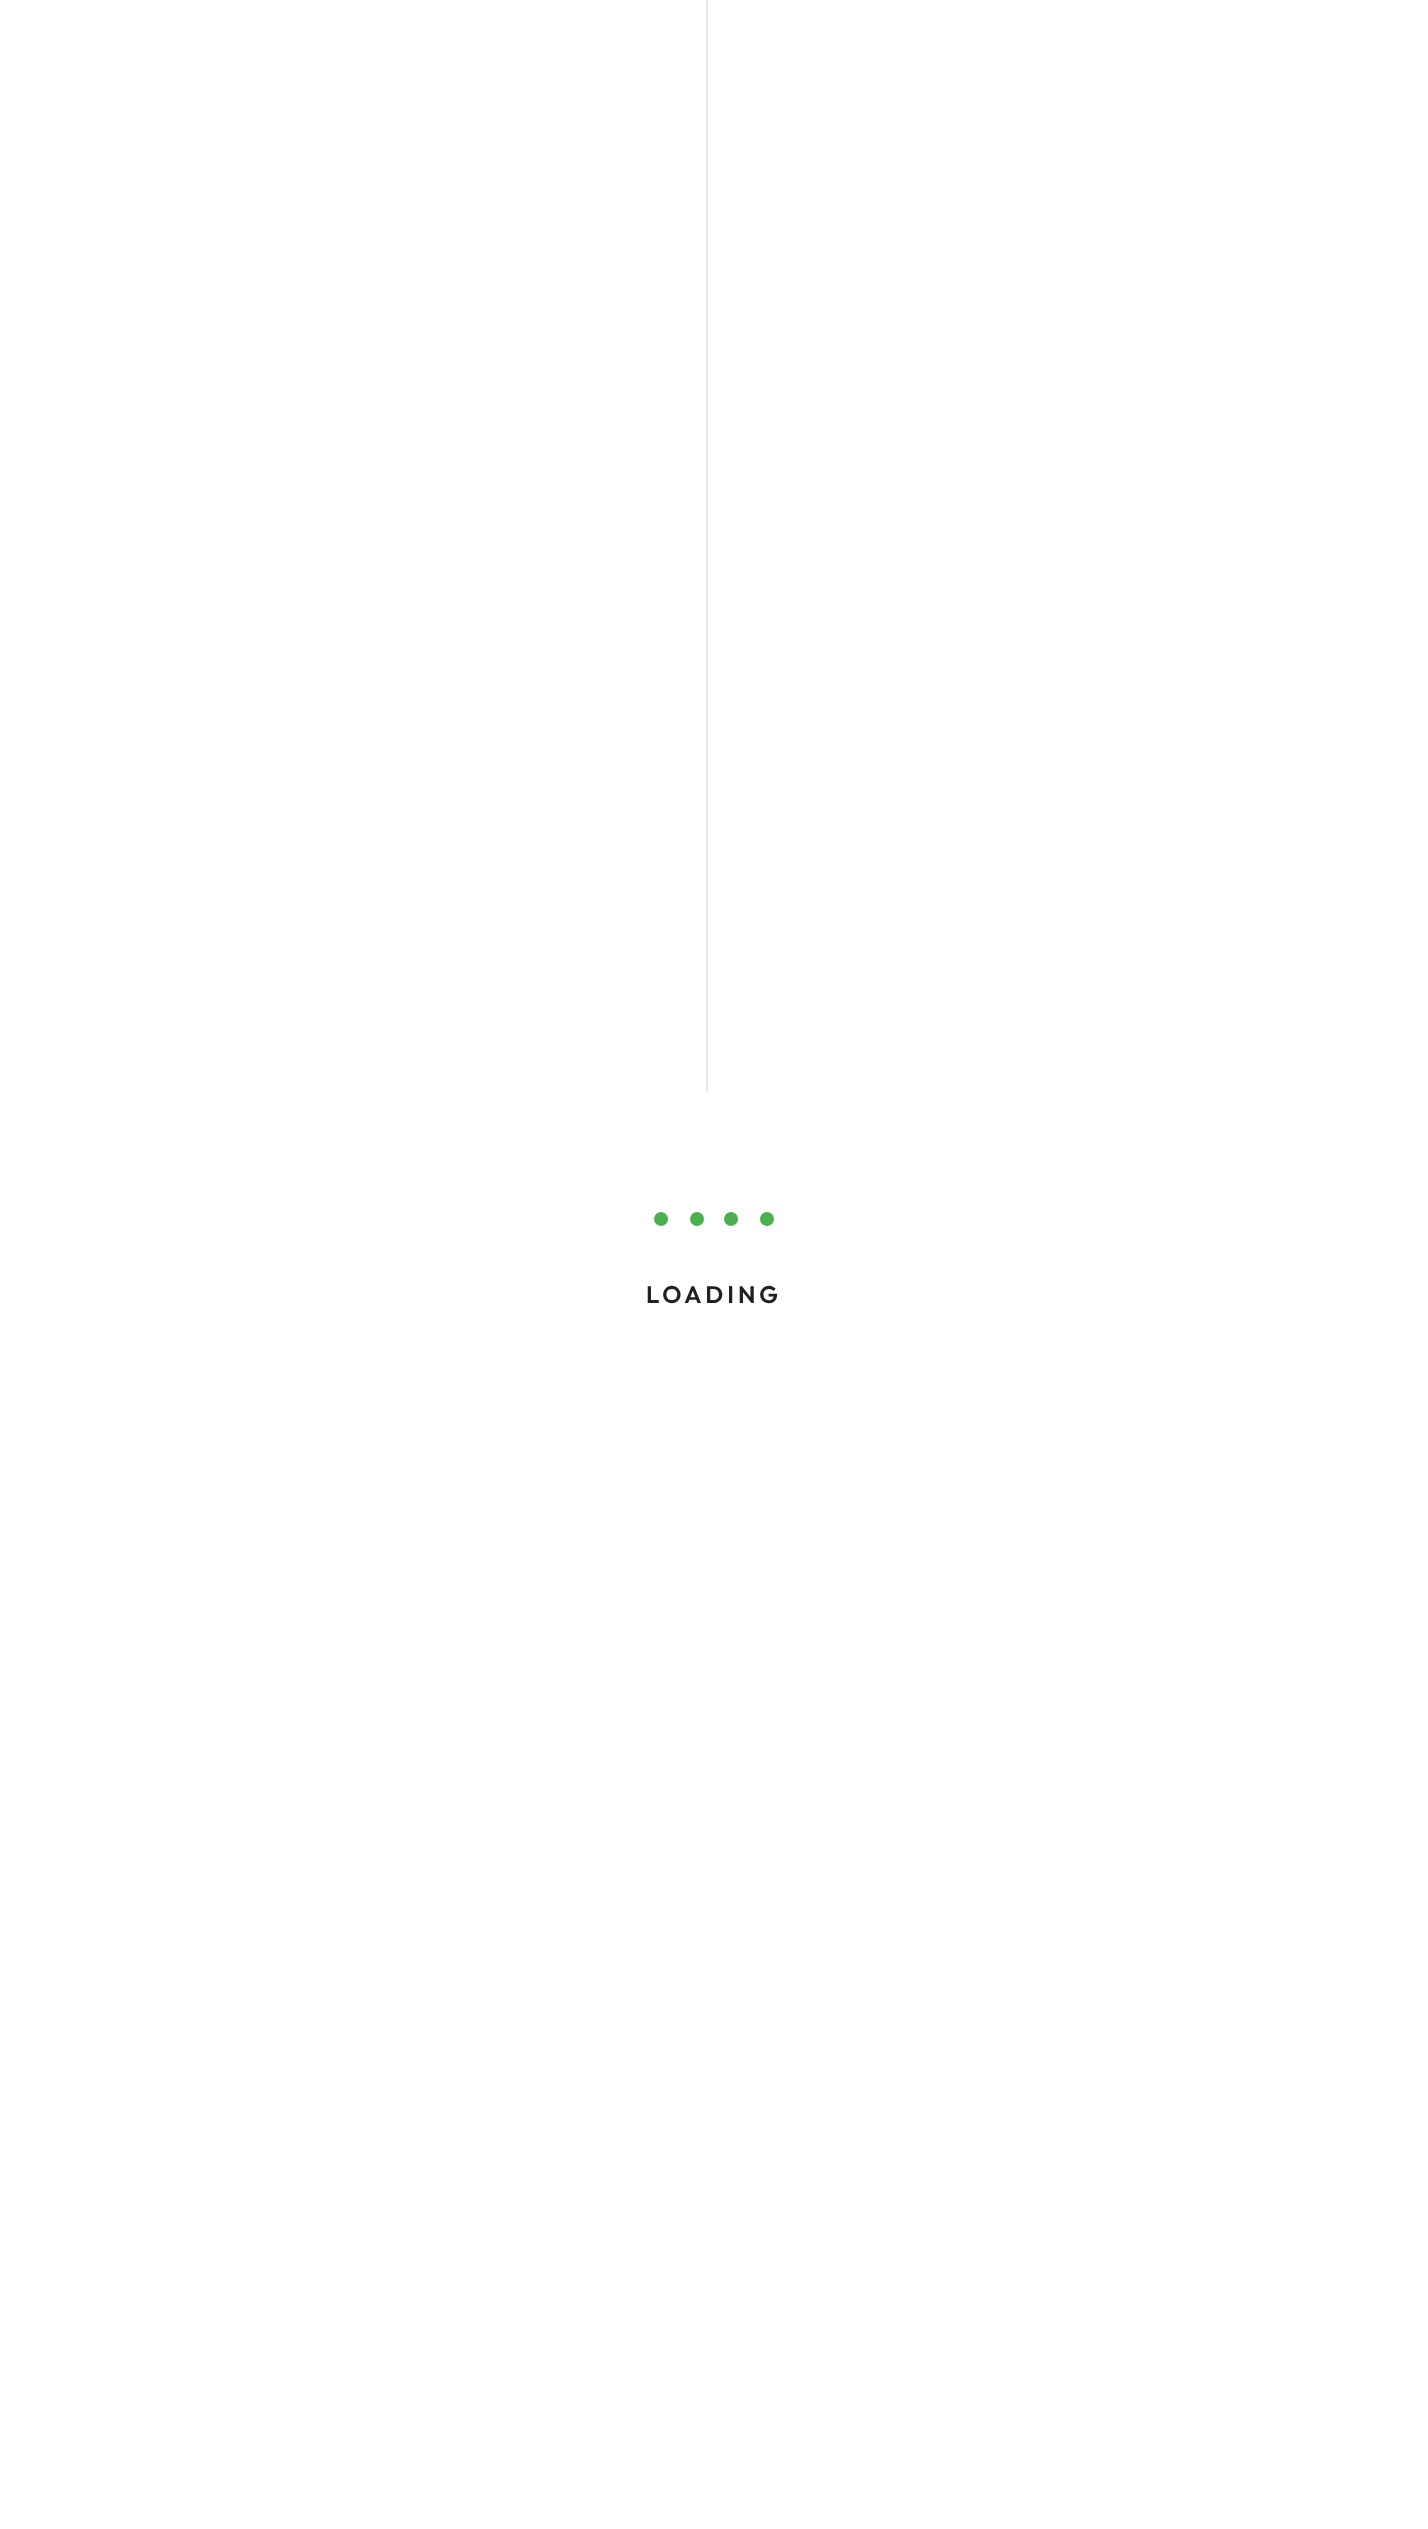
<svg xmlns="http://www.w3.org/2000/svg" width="1428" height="2529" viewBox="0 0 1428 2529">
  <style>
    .t1 { font: 600 24px Outfit; letter-spacing: 4px; fill: #202124; }
  </style>
  <rect width="100%" height="100%" fill="#fff"/>
  <rect x="706" y="0" width="2" height="1092" fill="#e9e9e9"/>
  <circle cx="661" cy="1219" r="7" fill="#4caf50"/>
  <circle cx="697" cy="1219" r="7" fill="#4caf50"/>
  <circle cx="731" cy="1219" r="7" fill="#4caf50"/>
  <circle cx="767" cy="1219" r="7" fill="#4caf50"/>
  <text x="646" y="1303" class="t1">LOADING</text>
</svg>
